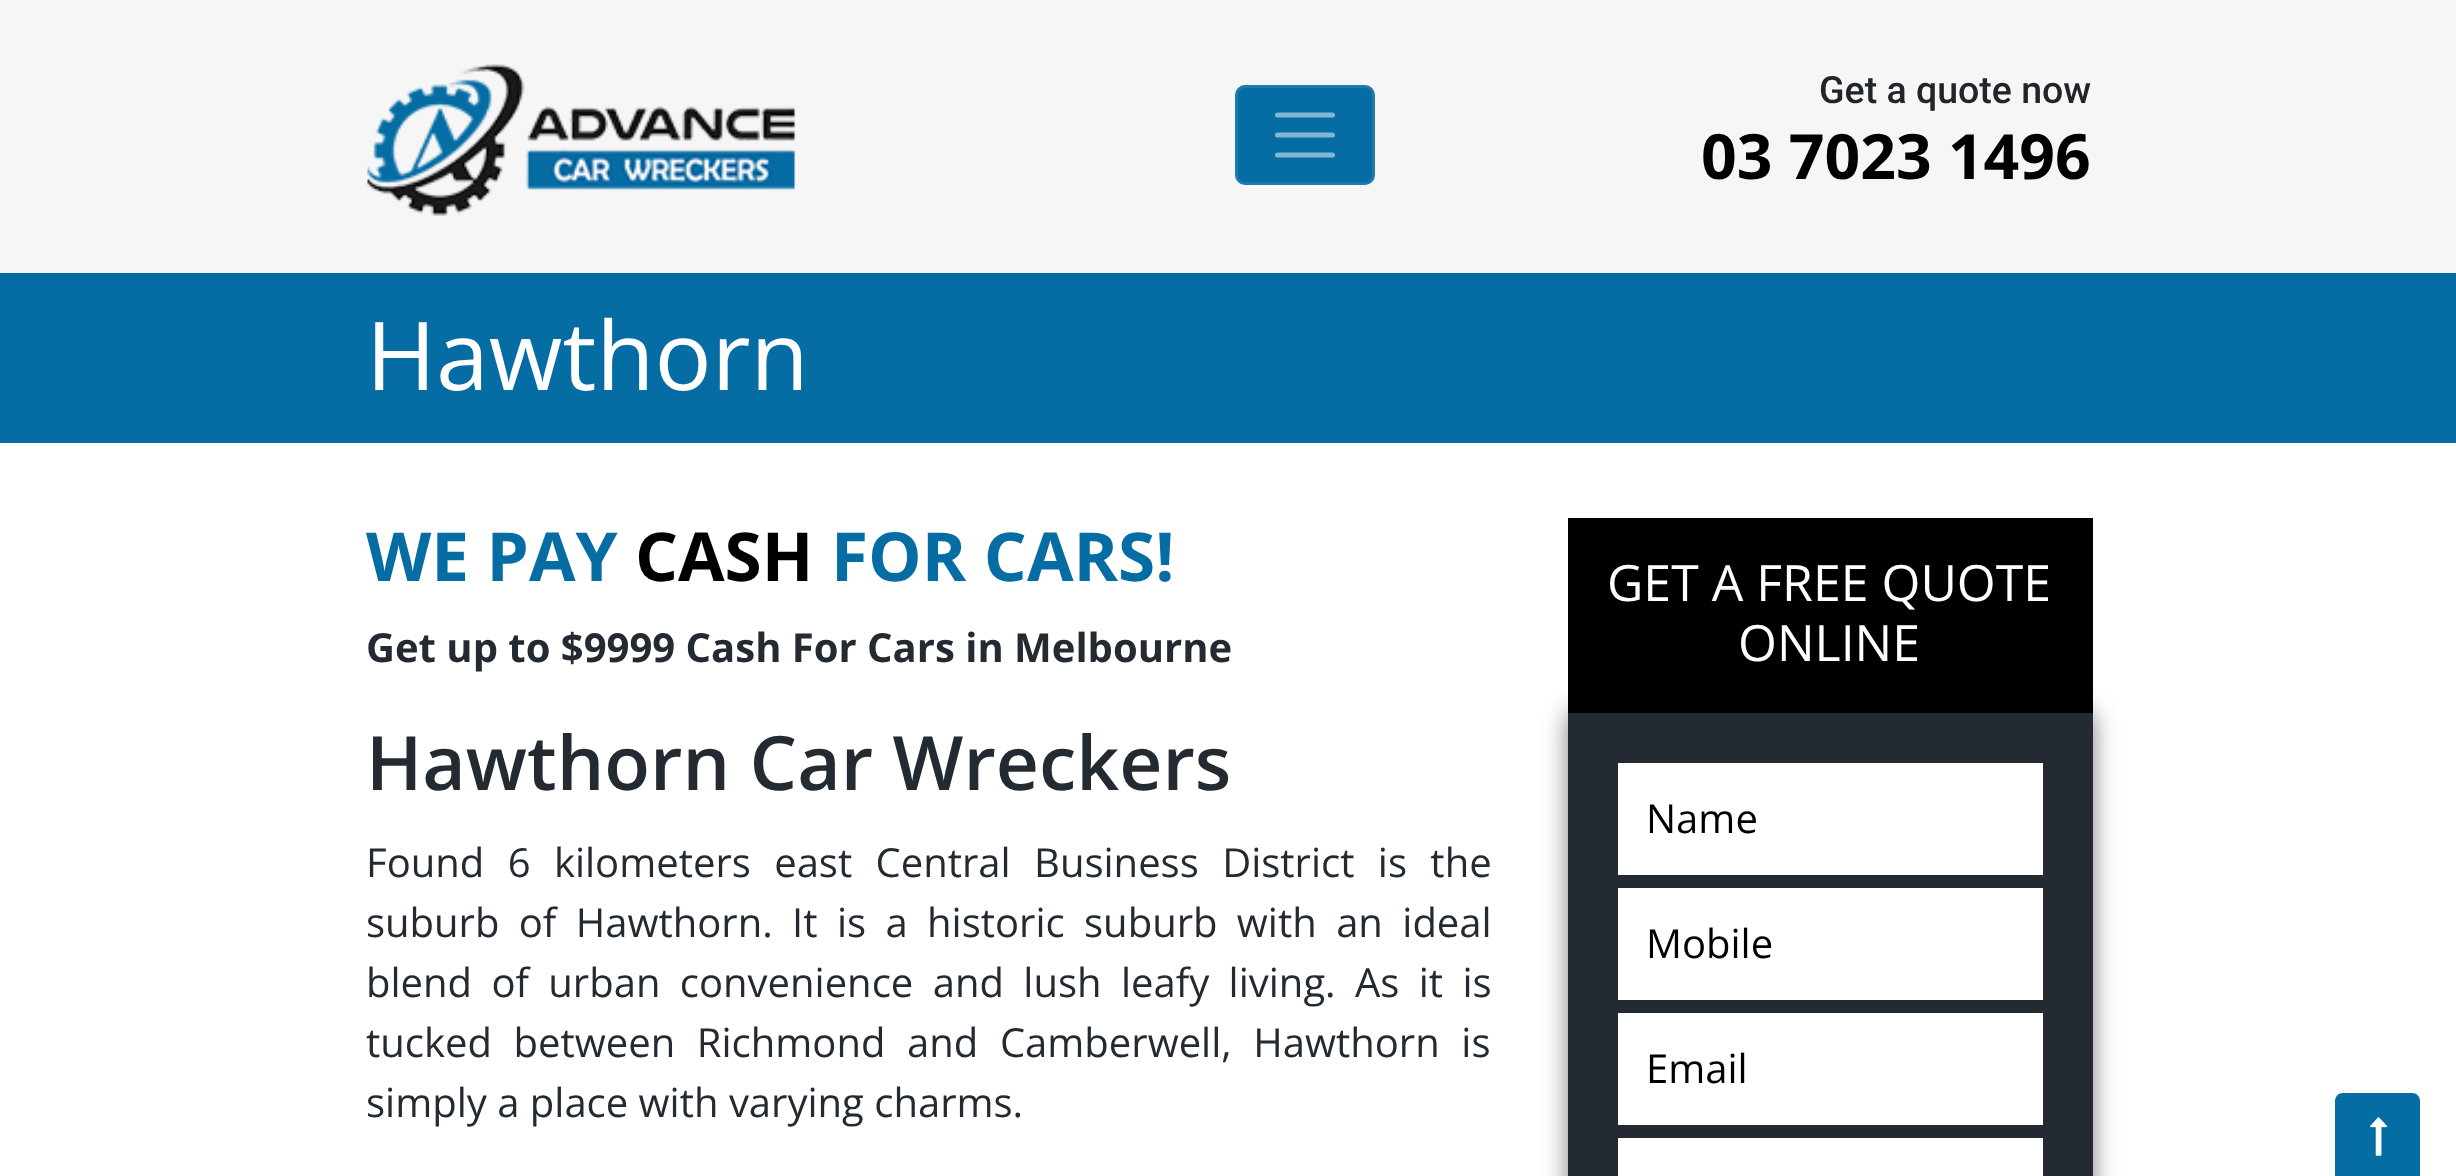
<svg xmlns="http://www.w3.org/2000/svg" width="2456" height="1176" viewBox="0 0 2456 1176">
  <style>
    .t1 { font: 500 37.5px Roboto; fill: #212529; }
    .t2 { font: bold 62.5px Open Sans; fill: #000; }
    .t3 { font: 95px Open Sans; fill: #fff; }
    .t4 { font: bold 67.5px Open Sans; fill: #056da4; }
    .t5 { font: bold 67.5px Open Sans; fill: #000; }
    .t6 { font: bold 40px Open Sans; fill: #242a31; }
    .t7 { font: 600 75px Open Sans; fill: #242a31; }
    .t8 { font: 40px Open Sans; fill: #242a31; }
    .t9 { font: 50px Open Sans; fill: #fff; }
    .t10 { font: 40px Open Sans; fill: #000; }
  </style>
  <rect width="100%" height="100%" fill="#fff"/>
  <rect x="0" y="0" width="2456" height="273" fill="#f6f6f7"/>
  <image x="367" y="64" width="429" height="152" href="images/1.png"/>
  <rect x="1235" y="85" width="140" height="100" rx="10" fill="#056da4"/>
  <rect x="1236.5" y="86.5" width="137" height="97" rx="8.5" fill="none" stroke="#ffffff1a" stroke-width="3"/>
  <path d="M1277.5 115H1332.5M1277.5 135H1332.5M1277.5 155H1332.5" fill="none" stroke="#82b6d2" stroke-width="5" stroke-linecap="round"/>
  <text x="1819" y="103" class="t1">Get a quote now</text>
  <text x="1701" y="179" class="t2">03 7023 1496</text>
  <rect x="0" y="273" width="2456" height="170" fill="#056da4"/>
  <text x="366" y="390" class="t3">Hawthorn</text>
  <text x="366" y="581" class="t4">WE PAY</text>
  <text x="635" y="581" class="t5">CASH</text>
  <text x="831" y="581" class="t4">FOR CARS!</text>
  <text x="366" y="662" class="t6">Get up to $9999 Cash For Cars in Melbourne</text>
  <text x="366" y="790" class="t7">Hawthorn Car Wreckers</text>
  <text x="366" y="877" word-spacing="13" class="t8">Found 6 kilometers east Central Business District is the</text>
  <text x="366" y="937" word-spacing="9" class="t8">suburb of Hawthorn. It is a historic suburb with an ideal</text>
  <text x="366" y="997" word-spacing="9" class="t8">blend of urban convenience and lush leafy living. As it is</text>
  <text x="366" y="1057" word-spacing="11.25" class="t8">tucked between Richmond and Camberwell, Hawthorn is</text>
  <text x="366" y="1117" class="t8">simply a place with varying charms.</text>
  <rect x="1568" y="713" width="525" height="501" fill="#00000080" filter="blur(12.5px)"/>
  <rect x="1568" y="518" width="525" height="195" fill="#000"/>
  <text x="1607" y="601" class="t9">GET A FREE QUOTE</text>
  <text x="1738" y="661" class="t9">ONLINE</text>
  <rect x="1568" y="713" width="525" height="463" fill="#242a31"/>
  <rect x="1618" y="763" width="425" height="112" fill="#fff"/>
  <text x="1646" y="833" class="t10">Name</text>
  <rect x="1618" y="888" width="425" height="112" fill="#fff"/>
  <text x="1646" y="958" class="t10">Mobile</text>
  <rect x="1618" y="1013" width="425" height="112" fill="#fff"/>
  <text x="1646" y="1083" class="t10">Email</text>
  <rect x="1618" y="1138" width="425" height="38" fill="#fff"/>
  <path d="M2343 1093H2412C2416.5 1093 2420 1096.5 2420 1101V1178H2335V1101C2335 1096.5 2338.5 1093 2343 1093Z" fill="#056da4"/>
  <image x="2370" y="1117" width="18" height="39" href="images/2.png"/>
</svg>
